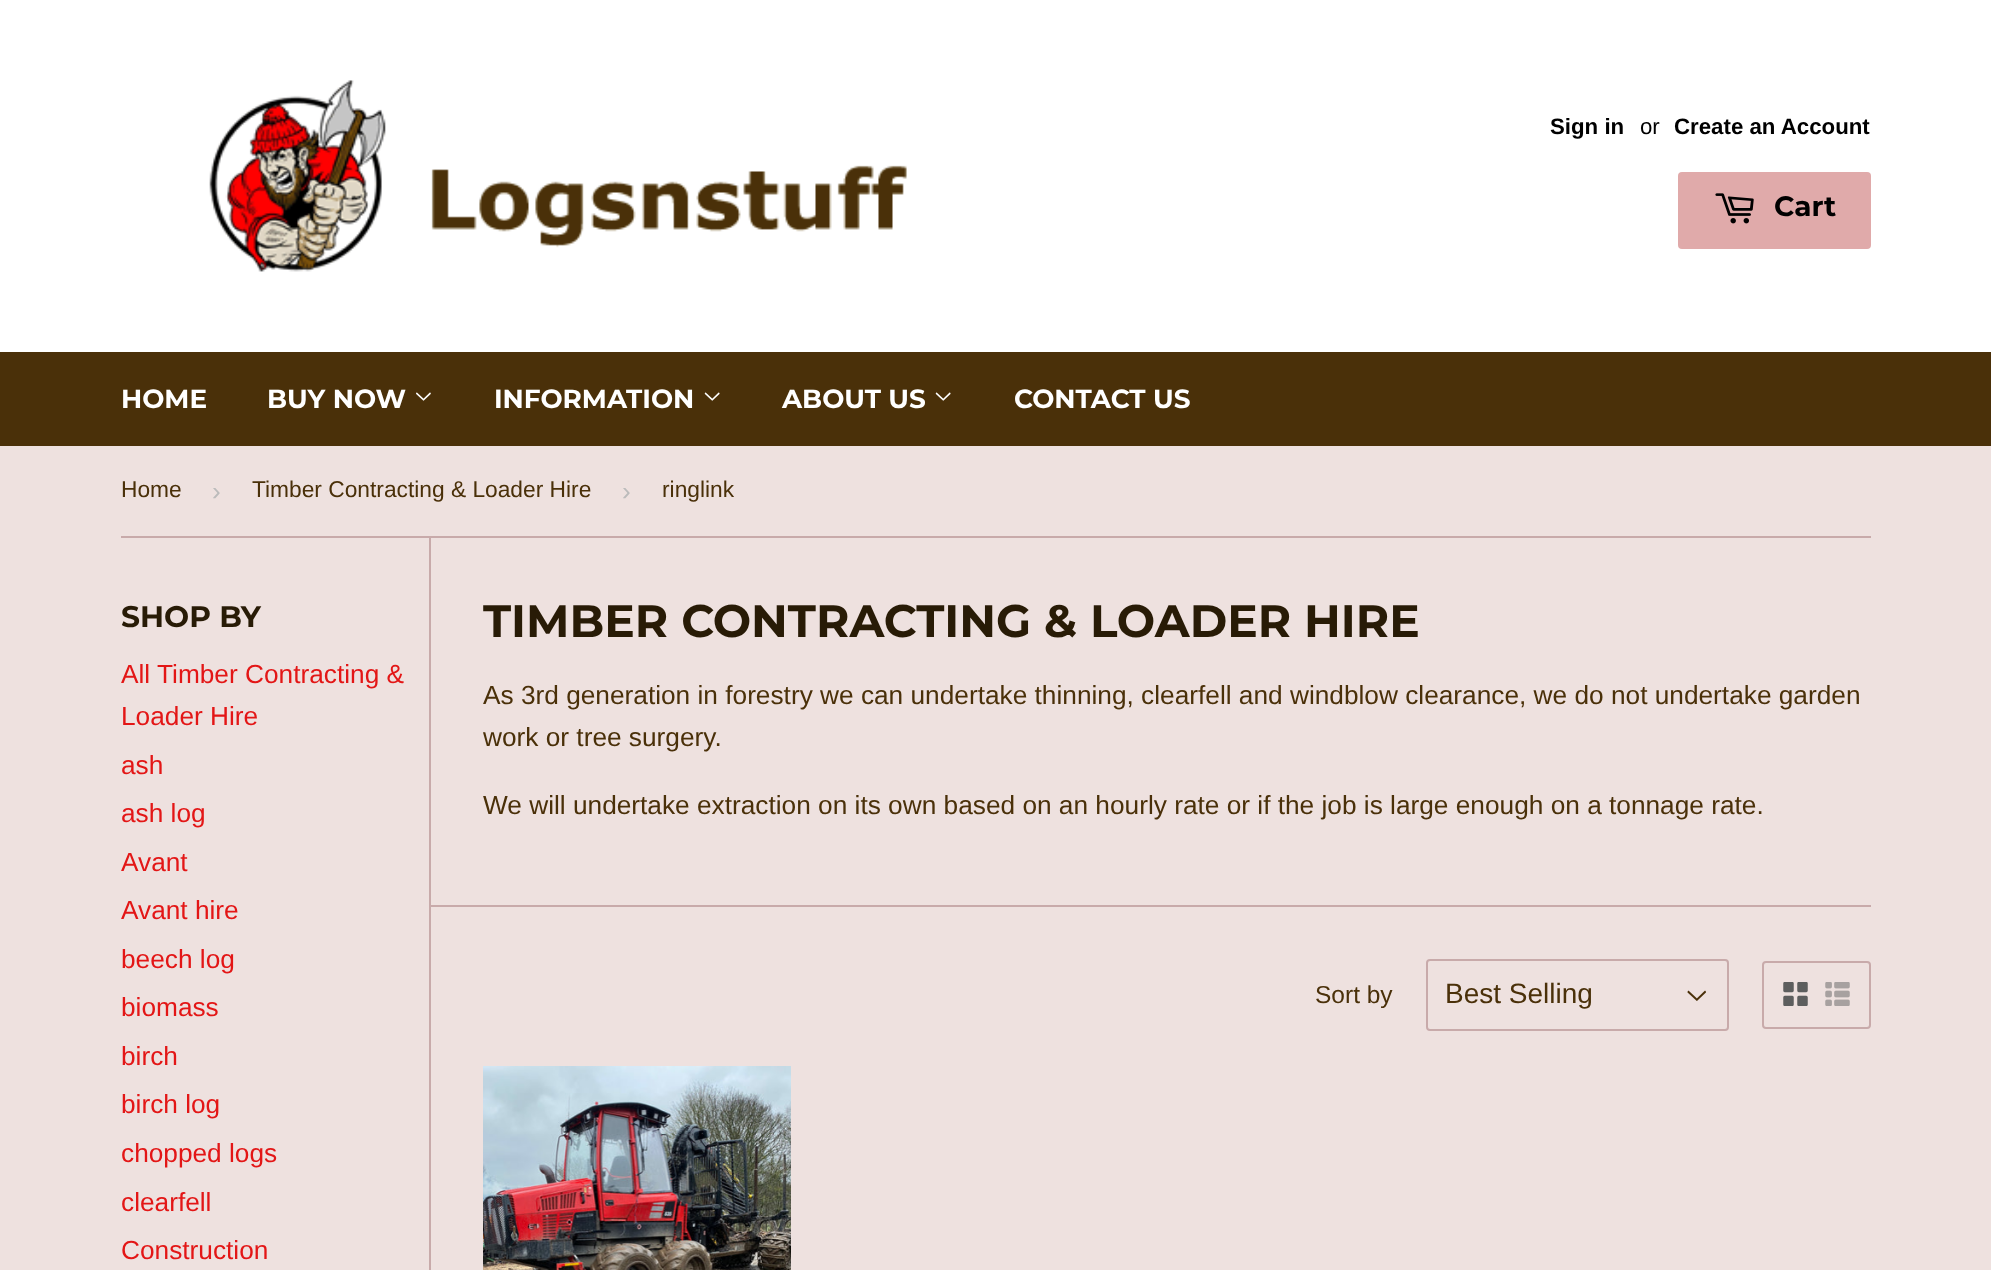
<svg xmlns="http://www.w3.org/2000/svg" width="1991" height="1270" viewBox="0 0 1991 1270">
  <style>
    .t1 { font: bold 22.25px Liberation Sans; fill: #000; }
    .t2 { font: 22.25px Liberation Sans; fill: #000; }
    .t3 { font: 100 28px Montserrat; fill: #000; }
    .t4 { font: 100 26.25px Montserrat; fill: #fff; }
    .t5 { font: 22.75px Liberation Sans; fill: #4a3009; }
    .t6 { font: 26.25px Liberation Sans; fill: #bbb; }
    .t7 { font: 100 29.75px Montserrat; fill: #281b06; }
    .t8 { font: 26.25px Liberation Sans; fill: #e31616; }
    .t9 { font: 100 45.5px Montserrat; fill: #281b06; }
    .t10 { font: 26.25px Liberation Sans; fill: #4a3009; }
    .t11 { font: 24.5px Liberation Sans; fill: #4a3009; }
    .t12 { font: 28px Liberation Sans; fill: #4a3009; }
  </style>
  <rect width="100%" height="100%" fill="#eee1df"/>
  <rect x="0" y="0" width="1991" height="352" fill="#fff"/>
  <image x="209" y="80" width="698" height="192" href="images/1.png"/>
  <text x="1550" y="134" class="t1">Sign in</text>
  <text x="1640" y="134" class="t2">or</text>
  <text x="1674" y="134" class="t1">Create an Account</text>
  <rect x="1678" y="172" width="193" height="77" rx="4" fill="#e0aaaa"/>
  <image x="1715" y="193" width="39" height="31" href="images/2.png"/>
  <text x="1774" y="216" class="t3">Cart</text>
  <rect x="0" y="352" width="1991" height="94" fill="#4a3009"/>
  <text x="121" y="408" class="t4">HOME</text>
  <text x="267" y="408" class="t4">BUY NOW</text>
  <image x="416" y="392" width="15" height="9" href="images/3.png"/>
  <text x="494" y="408" class="t4">INFORMATION</text>
  <image x="704" y="392" width="16" height="9" href="images/4.png"/>
  <text x="782" y="408" class="t4">ABOUT US</text>
  <image x="935" y="392" width="16" height="9" href="images/4.png"/>
  <text x="1014" y="408" class="t4">CONTACT US</text>
  <rect x="121" y="536" width="1750" height="2" fill="#c8aaaa"/>
  <text x="121" y="497" class="t5">Home</text>
  <text x="212" y="500" class="t6">›</text>
  <text x="252" y="497" class="t5">Timber Contracting &amp; Loader Hire</text>
  <text x="622" y="500" class="t6">›</text>
  <text x="662" y="497" class="t5">ringlink</text>
  <text x="121" y="627" class="t7">SHOP BY</text>
  <text x="121" y="683" class="t8">All</text>
  <text x="157" y="683" class="t8">Timber Contracting &amp;</text>
  <text x="121" y="725" class="t8">Loader Hire</text>
  <text x="121" y="774" class="t8">ash</text>
  <text x="121" y="822" class="t8">ash log</text>
  <text x="121" y="871" class="t8">Avant</text>
  <text x="121" y="919" class="t8">Avant hire</text>
  <text x="121" y="968" class="t8">beech log</text>
  <text x="121" y="1016" class="t8">biomass</text>
  <text x="121" y="1065" class="t8">birch</text>
  <text x="121" y="1113" class="t8">birch log</text>
  <text x="121" y="1162" class="t8">chopped logs</text>
  <text x="121" y="1211" class="t8">clearfell</text>
  <text x="121" y="1259" class="t8">Construction</text>
  <rect x="429" y="537" width="2" height="733" fill="#c8aaaa"/>
  <text x="483" y="637" class="t9">TIMBER CONTRACTING &amp; LOADER HIRE</text>
  <text x="483" y="704" class="t10">As 3rd generation in forestry we can undertake thinning, clearfell and windblow clearance, we do not undertake garden</text>
  <text x="483" y="746" class="t10">work or tree surgery.</text>
  <text x="483" y="814" class="t10">We will undertake extraction on its own based on an hourly rate or if the job is large enough on a tonnage rate.</text>
  <rect x="431" y="905" width="1440" height="2" fill="#c8aaaa"/>
  <text x="1315" y="1003" class="t11">Sort by</text>
  <image x="1687" y="990" width="19" height="11" href="images/5.png"/>
  <rect x="1427" y="960" width="301" height="70" rx="3" fill="none" stroke="#c8aaaa" stroke-width="2"/>
  <text x="1445" y="1003" class="t12">Best Selling</text>
  <rect x="1763" y="962" width="107" height="66" rx="3" fill="none" stroke="#c8aaaa" stroke-width="2"/>
  <image x="1783" y="982" width="25" height="24" href="images/6.png"/>
  <image x="1825" y="982" width="25" height="24" href="images/7.png"/>
  <image x="483" y="1066" width="308" height="204" href="images/8.png"/>
</svg>
